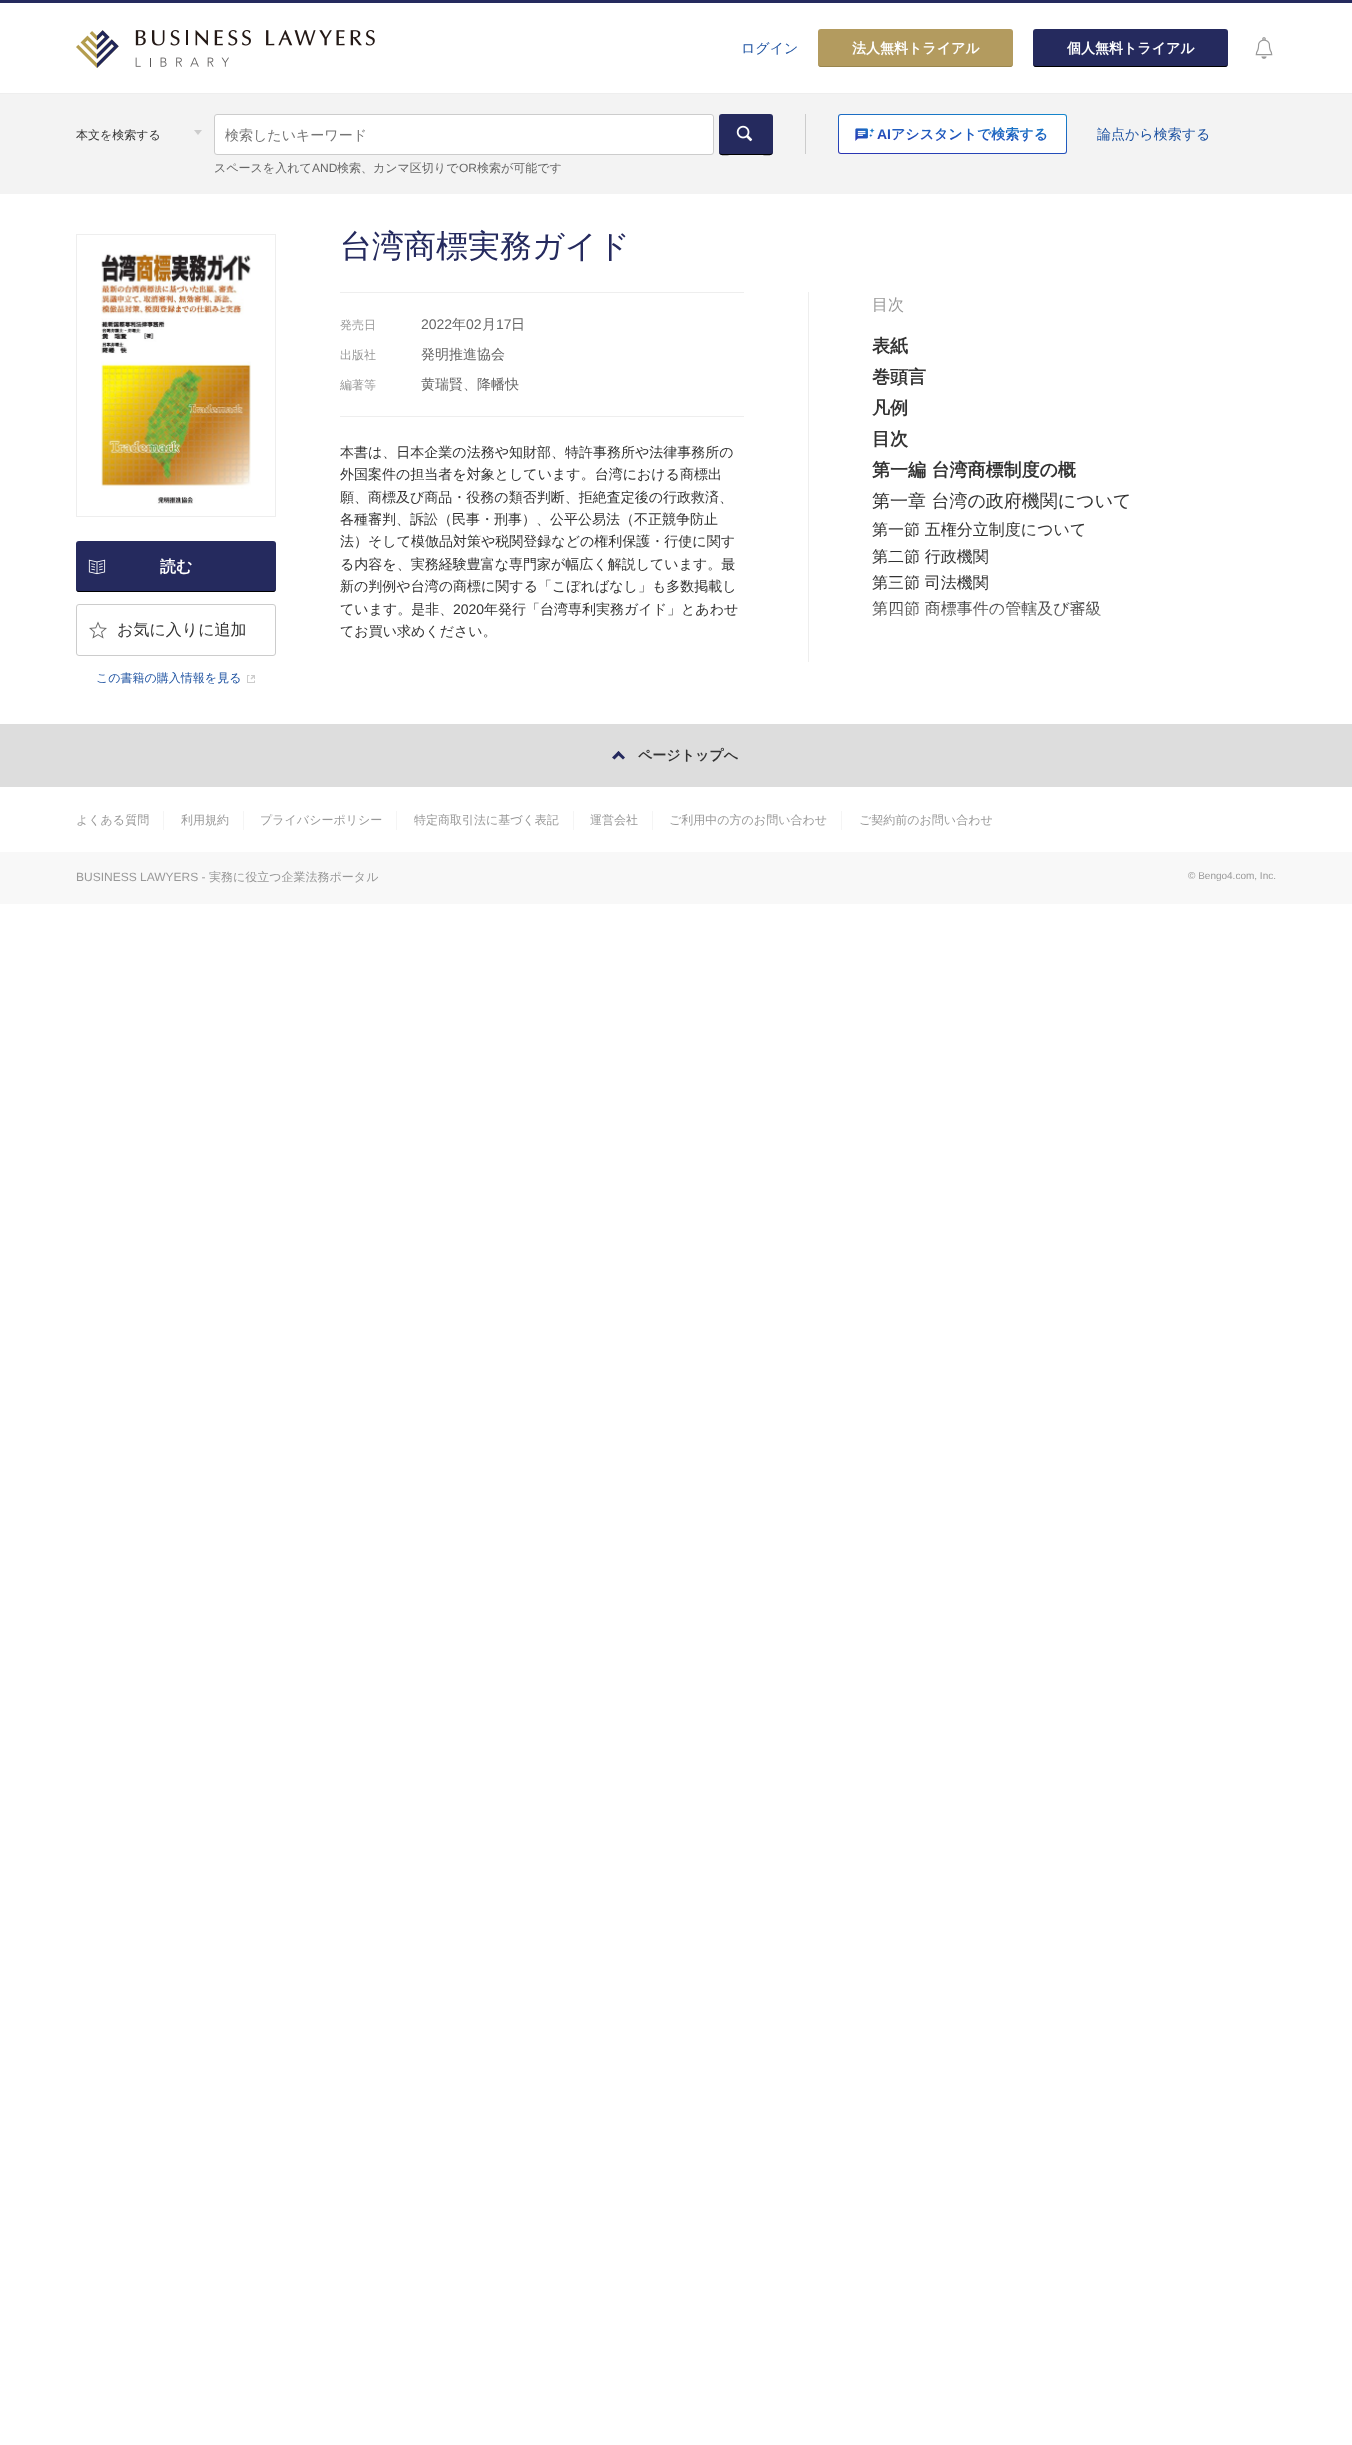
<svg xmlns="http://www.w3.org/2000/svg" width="1352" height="2445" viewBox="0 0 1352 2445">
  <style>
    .t1 { font: 500 14px WenQuanYi Zen Hei; fill: #2054a2; }
    .t2 { font: bold 14px WenQuanYi Zen Hei; fill: #fff; }
    .t3 { font: 500 12px WenQuanYi Zen Hei; fill: #333; }
    .t4 { font: 500 14px WenQuanYi Zen Hei; fill: #757575; }
    .t5 { font: 500 12px WenQuanYi Zen Hei; fill: #666; }
    .t6 { font: 12px Liberation Sans; fill: #666; }
    .t7 { font: bold 14px Liberation Sans; fill: url(#g1); }
    .t8 { font: bold 14px WenQuanYi Zen Hei; fill: url(#g1); }
    .t9 { font: bold 16px WenQuanYi Zen Hei; fill: #fff; }
    .t10 { font: 500 16px WenQuanYi Zen Hei; fill: #333; }
    .t11 { font: 500 12px WenQuanYi Zen Hei; fill: #2054a2; }
    .t12 { font: 500 32px WenQuanYi Zen Hei; fill: #252a5e; }
    .t13 { font: 500 12px WenQuanYi Zen Hei; fill: #999; }
    .t14 { font: 14px Liberation Sans; fill: #666; }
    .t15 { font: 500 14px WenQuanYi Zen Hei; fill: #666; }
    .t16 { font: 500 14px WenQuanYi Zen Hei; fill: #333; }
    .t17 { font: 14px Liberation Sans; fill: #333; }
    .t18 { font: 500 16px WenQuanYi Zen Hei; fill: #999; }
    .t19 { font: bold 18px WenQuanYi Zen Hei; fill: #333; }
    .t20 { font: 500 18px WenQuanYi Zen Hei; fill: #333; }
    .t21 { font: bold 14px WenQuanYi Zen Hei; fill: #333; }
    .t22 { font: 12px Liberation Sans; fill: #999; }
    .t23 { font: 10px Liberation Sans; fill: #999; }
  </style>
  <defs>
    <linearGradient id="g1" gradientUnits="userSpaceOnUse" x1="961" y1="153" x2="964" y2="115"><stop offset="0" stop-color="#2b32b2"/><stop offset="1" stop-color="#1488cc"/></linearGradient>
    <linearGradient id="g2" gradientUnits="userSpaceOnUse" x1="950" y1="164" x2="955" y2="104"><stop offset="0" stop-color="#2b32b2"/><stop offset="1" stop-color="#1488cc"/></linearGradient>
    <linearGradient id="g3" gradientUnits="userSpaceOnUse" x1="1074" y1="662" x2="1074" y2="598"><stop offset="0.1" stop-color="#fff"/><stop offset="1" stop-color="#fff" stop-opacity="0"/></linearGradient>
  </defs>
  <rect width="100%" height="100%" fill="#fff"/>
  <rect x="0" y="0" width="1352" height="3" fill="#252a5e"/>
  <rect x="0" y="93" width="1352" height="1" fill="#eee"/>
  <image x="76" y="30" width="299" height="38" href="images/1.png"/>
  <text x="741" y="53" class="t1">ログイン</text>
  <rect x="818" y="29" width="195" height="38" rx="3" fill="#b39b5f"/>
  <path d="M818 63C818 65 819 67 821 67H1010C1012 67 1013 65 1013 63C1013 65 1012 66 1010 66H821C819 66 818 65 818 63Z" fill="#99854d"/>
  <text x="852" y="53" class="t2">法人無料トライアル</text>
  <rect x="1033" y="29" width="195" height="38" rx="3" fill="#252a5e"/>
  <path d="M1033 63C1033 65 1034 67 1036 67H1225C1227 67 1228 65 1228 63C1228 65 1227 66 1225 66H1036C1034 66 1033 65 1033 63Z" fill="#000"/>
  <text x="1067" y="53" class="t2">個人無料トライアル</text>
  <image x="1255" y="37" width="18" height="22" href="images/2.png"/>
  <rect x="0" y="94" width="1352" height="100" fill="#f3f3f3"/>
  <text x="76" y="139" class="t3">本文を検索する</text>
  <path d="M194 130H202L198 135Z" fill="#ccc"/>
  <rect x="214.5" y="114.5" width="499" height="40" rx="2.5" fill="#fff" stroke="#ccc"/>
  <text x="225" y="140" class="t4">検索したいキーワード</text>
  <text x="214" y="172" class="t5">スペースを入れて</text>
  <text x="312" y="172" class="t6">AND</text>
  <text x="337" y="172" class="t5">検索、カンマ区切りで</text>
  <text x="459" y="172" class="t6">OR</text>
  <text x="477" y="172" class="t5">検索が可能です</text>
  <rect x="719" y="114" width="54" height="41" rx="3" fill="#252a5e"/>
  <path d="M719 151C719 157 726 155 730 155H762C766 155 773 157 773 151C773 153 772 154 770 154H722C720 154 719 153 719 151Z" fill="#000"/>
  <image x="736" y="125" width="17" height="17" href="images/3.png"/>
  <rect x="805" y="114" width="1" height="40" fill="#ccc"/>
  <rect x="838" y="114" width="229" height="40" rx="3" fill="url(#g2)"/>
  <rect x="839" y="115" width="227" height="38" rx="2" fill="#fff"/>
  <image x="855" y="128" width="20" height="13" href="images/4.png"/>
  <text x="877" y="139" class="t7">AI</text>
  <text x="891" y="139" class="t8">アシスタントで検索する</text>
  <text x="1097" y="139" class="t1">論点から検索する</text>
  <rect x="76.5" y="234.5" width="199" height="282" fill="none" stroke="#eee"/>
  <image x="101" y="251" width="150" height="253" href="images/5.png"/>
  <rect x="76" y="541" width="200" height="51" rx="3" fill="#252a5e"/>
  <path d="M76 588C76 590 77 592 79 592H273C275 592 276 590 276 588C276 590 275 591 273 591H79C77 591 76 590 76 588Z" fill="#000"/>
  <image x="88" y="559" width="18" height="16" href="images/6.png"/>
  <text x="160" y="572" class="t9">読む</text>
  <rect x="76.5" y="604.5" width="199" height="51" rx="2.5" fill="none" stroke="#ccc"/>
  <image x="89" y="621" width="18" height="18" href="images/7.png"/>
  <text x="117" y="635" class="t10">お気に入りに追加</text>
  <text x="96" y="682" class="t11">この書籍の購入情報を見る</text>
  <image x="247" y="675" width="8" height="8" href="images/8.png"/>
  <text x="340" y="257" class="t12">台湾商標実務ガイド</text>
  <rect x="340" y="292" width="404" height="1" fill="#eee"/>
  <rect x="340" y="416" width="404" height="1" fill="#eee"/>
  <text x="340" y="329" class="t13">発売日</text>
  <text x="421" y="329" class="t14">2022</text>
  <text x="452" y="329" class="t15">年</text>
  <text x="466" y="329" class="t14">02</text>
  <text x="482" y="329" class="t15">月</text>
  <text x="496" y="329" class="t14">17</text>
  <text x="511" y="329" class="t15">日</text>
  <text x="340" y="359" class="t13">出版社</text>
  <text x="421" y="359" class="t15">発明推進協会</text>
  <text x="340" y="389" class="t13">編著等</text>
  <text x="421" y="389" class="t15">黄瑞賢、降幡快</text>
  <text x="340" y="457" class="t16">本書は、日本企業の法務や知財部、特許事務所や法律事務所の</text>
  <text x="340" y="479" class="t16">外国案件の担当者を対象としています。台湾における商標出</text>
  <text x="340" y="502" class="t16">願、商標及び商品・役務の類否判断、拒絶査定後の行政救済、</text>
  <text x="340" y="524" class="t16">各種審判、訴訟（民事・刑事）、公平公易法（不正競争防止</text>
  <text x="340" y="546" class="t16">法）そして模倣品対策や税関登録などの権利保護・行使に関す</text>
  <text x="340" y="569" class="t16">る内容を、実務経験豊富な専門家が幅広く解説しています。最</text>
  <text x="340" y="591" class="t16">新の判例や台湾の商標に関する「こぼればなし」も多数掲載し</text>
  <text x="340" y="614" class="t16">ています。是非、</text>
  <text x="453" y="614" class="t17">2020</text>
  <text x="484" y="614" class="t16">年発行「台湾専利実務ガイド」とあわせ</text>
  <text x="340" y="636" class="t16">てお買い求めください。</text>
  <rect x="808" y="292" width="1" height="370" fill="#eee"/>
  <text x="872" y="310" class="t18">目次</text>
  <text x="872" y="352" class="t19">表紙</text>
  <text x="872" y="383" class="t19">巻頭言</text>
  <text x="872" y="414" class="t19">凡例</text>
  <text x="872" y="445" class="t19">目次</text>
  <text x="872" y="476" class="t19">第一編 台湾商標制度の概</text>
  <text x="872" y="507" class="t20">第一章 台湾の政府機関について</text>
  <text x="872" y="535" class="t10">第一節 五権分立制度について</text>
  <text x="872" y="562" class="t10">第二節 行政機関</text>
  <text x="872" y="588" class="t10">第三節 司法機関</text>
  <text x="872" y="614" class="t10">第四節 商標事件の管轄及び審級</text>
  <rect x="872" y="600" width="229" height="17" fill="url(#g3)"/>
  <rect x="0" y="724" width="1352" height="63" fill="#ddd"/>
  <path d="M612 757.5L618.5 751L620.5 753.5L614.5 759.5Z" fill="#252a5e"/>
  <path d="M616.5 753.5L618.5 751L625 757.5L623 759.5Z" fill="#252a5e"/>
  <text x="638" y="760" class="t21">ページトップへ</text>
  <rect x="163" y="811" width="1" height="19" fill="#f5f5f5"/>
  <text x="76" y="824" class="t13">よくある質問</text>
  <rect x="243" y="811" width="1" height="19" fill="#f5f5f5"/>
  <text x="181" y="824" class="t13">利用規約</text>
  <rect x="396" y="811" width="1" height="19" fill="#f5f5f5"/>
  <text x="260" y="824" class="t13">プライバシーポリシー</text>
  <rect x="573" y="811" width="1" height="19" fill="#f5f5f5"/>
  <text x="414" y="824" class="t13">特定商取引法に基づく表記</text>
  <rect x="652" y="811" width="1" height="19" fill="#f5f5f5"/>
  <text x="590" y="824" class="t13">運営会社</text>
  <rect x="841" y="811" width="1" height="19" fill="#f5f5f5"/>
  <text x="669" y="824" class="t13">ご利用中の方のお問い合わせ</text>
  <text x="859" y="824" class="t13">ご契約前のお問い合わせ</text>
  <rect x="0" y="852" width="1352" height="52" fill="#f8f8f8"/>
  <text x="76" y="881" class="t22">BUSINESS LAWYERS -</text>
  <text x="209" y="881" class="t13">実務に役立つ企業法務ポータル</text>
  <text x="1188" y="879" class="t23">© Bengo4.com, Inc.</text>
</svg>
